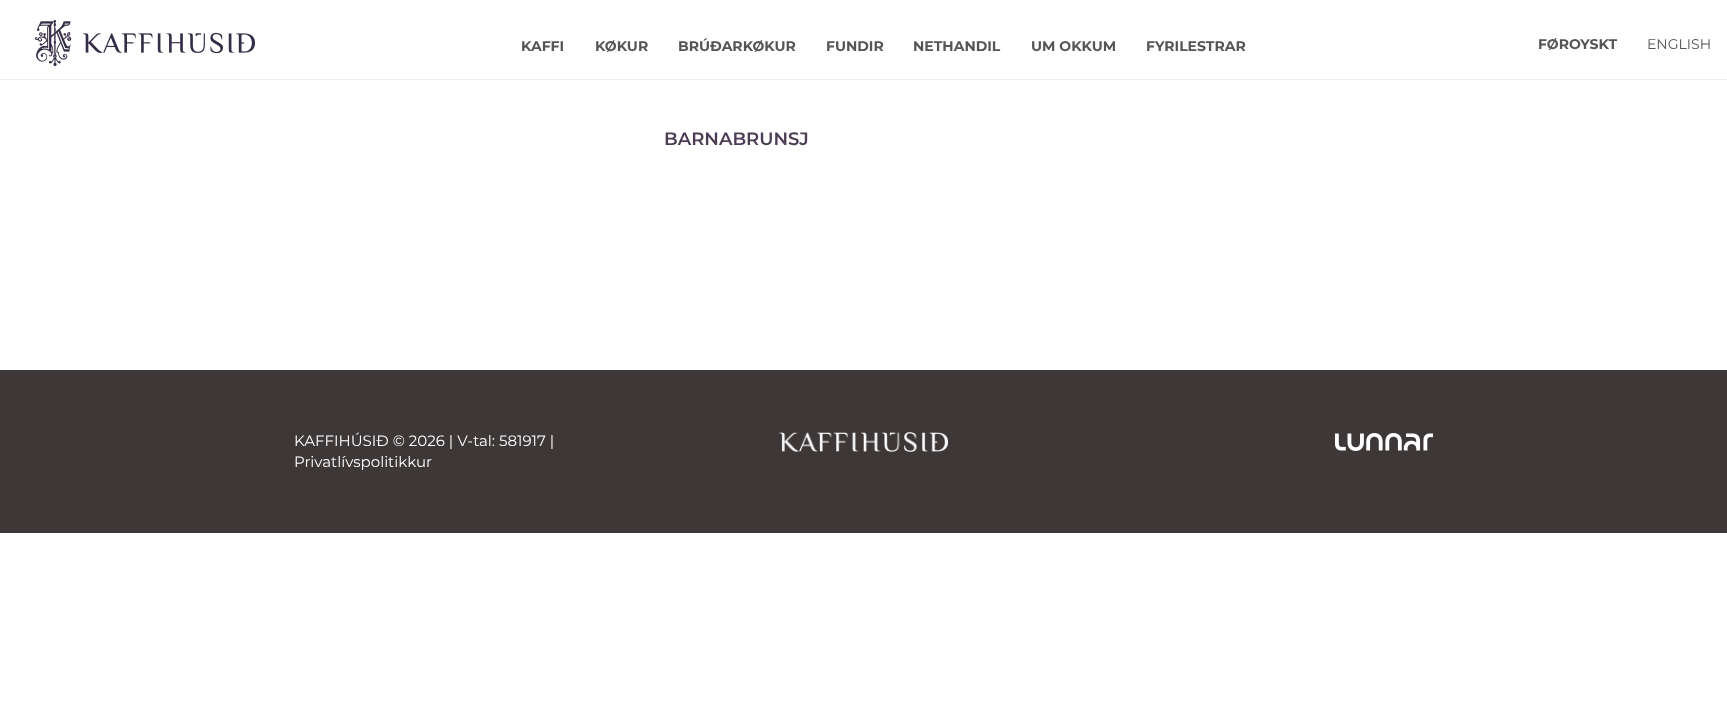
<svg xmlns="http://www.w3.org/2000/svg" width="1727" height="701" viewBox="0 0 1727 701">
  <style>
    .t1 { font: bold 14px Montserrat; fill: #555; }
    .t2 { font: 14px Montserrat; fill: #555; }
    .t3 { font: 600 18px Montserrat; fill: #4c3d55; }
    .t4 { font: 15px Montserrat; fill: #fff; }
  </style>
  <rect width="100%" height="100%" fill="#fff"/>
  <rect x="0" y="79" width="1727" height="1" fill="#eee"/>
  <image x="35" y="20" width="220" height="46" href="images/1.png"/>
  <text x="521" y="51" class="t1">KAFFI</text>
  <text x="595" y="51" class="t1">KØKUR</text>
  <text x="678" y="51" class="t1">BRÚÐARKØKUR</text>
  <text x="826" y="51" class="t1">FUNDIR</text>
  <text x="913" y="51" class="t1">NETHANDIL</text>
  <text x="1031" y="51" class="t1">UM OKKUM</text>
  <text x="1146" y="51" class="t1">FYRILESTRAR</text>
  <text x="1538" y="49" class="t1">FØROYSKT</text>
  <text x="1647" y="49" class="t2">ENGLISH</text>
  <text x="664" y="145" class="t3">BARNABRUNSJ</text>
  <rect x="0" y="370" width="1727" height="163" fill="#3d3737"/>
  <text x="294" y="446" class="t4">KAFFIHÚSIÐ © 2026 | V-tal: 581917 |</text>
  <text x="294" y="467" class="t4">Privatlívspolitikkur</text>
  <image x="779" y="432" width="169" height="20" href="images/2.png"/>
  <image x="1335" y="433" width="98" height="18" href="images/3.png"/>
</svg>
